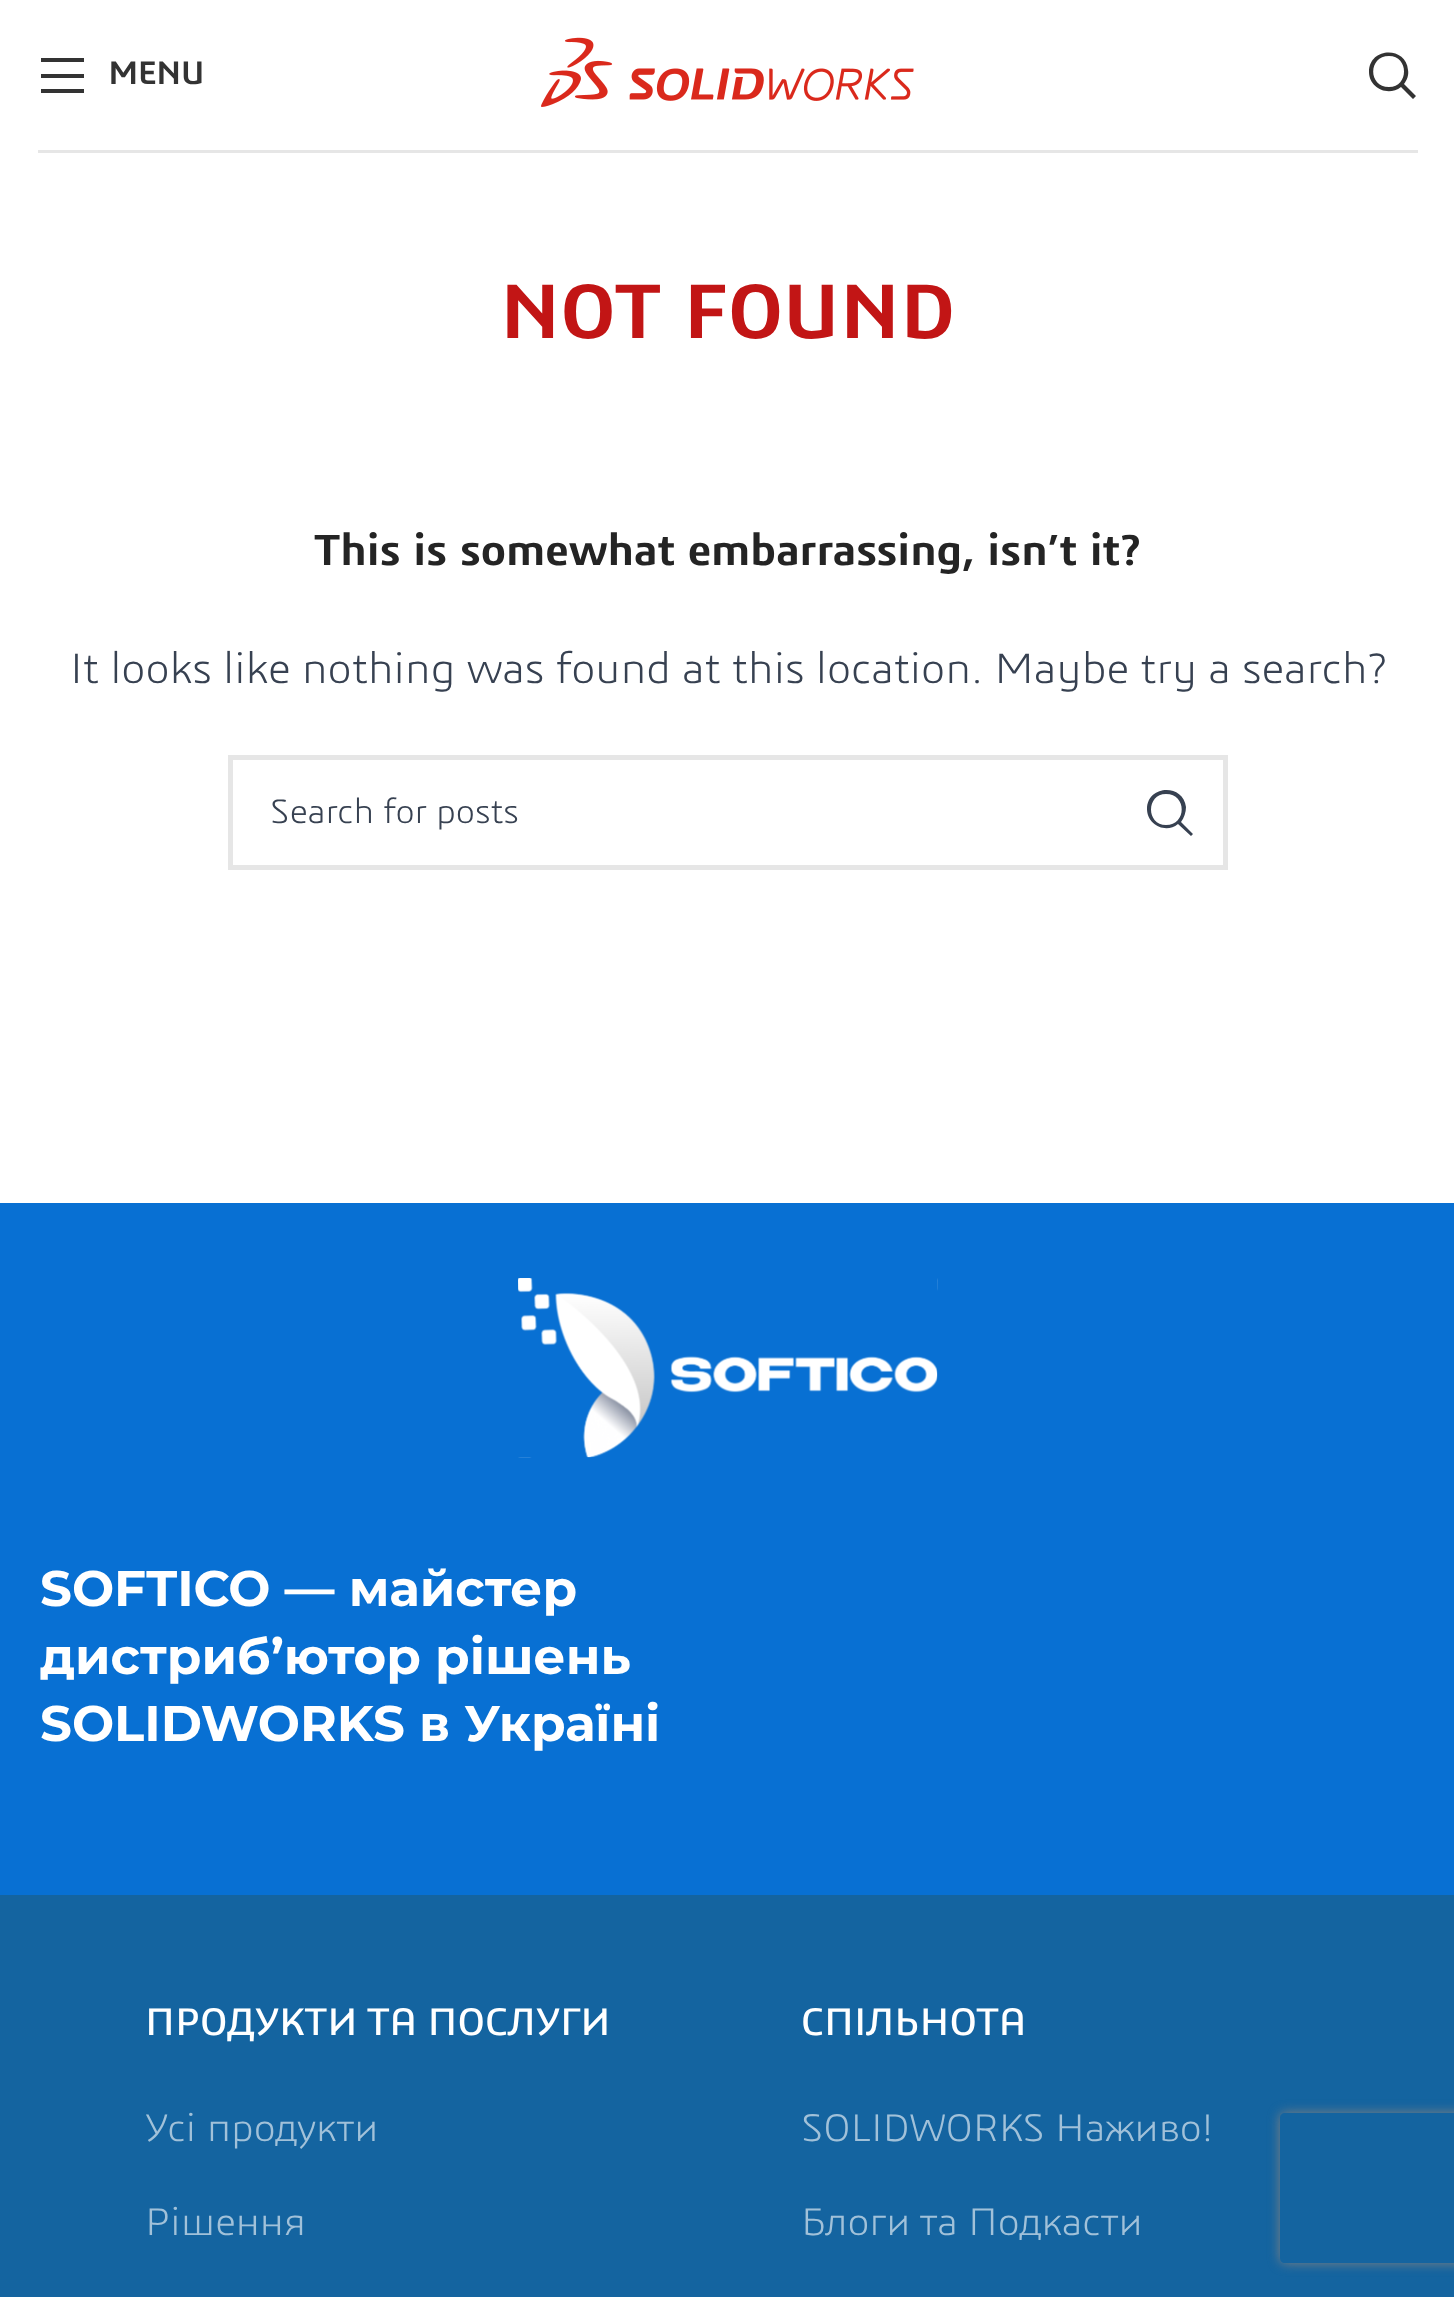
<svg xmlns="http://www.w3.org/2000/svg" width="1454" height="2297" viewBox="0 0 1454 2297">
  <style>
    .t1 { font: bold 32.5px '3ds'; fill: #333; }
    .t2 { font: 600 80px '3ds'; fill: #c21515; }
    .t3 { font: 600 45px '3ds'; fill: #242424; }
    .t4 { font: 300 44px '3ds'; fill: #374151; }
    .t5 { font: 300 35px '3ds'; fill: #374151; }
    .t6 { font: bold 50px Montserrat; fill: #fff; }
    .t7 { font: 40px '3ds'; fill: #fff; }
    .t8 { font: 300 40px '3ds'; fill: #a1c1d9; }
  </style>
  <defs>
    <clipPath id="clip1"><path d="M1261 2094H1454V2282H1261ZM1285 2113H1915C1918 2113 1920 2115 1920 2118V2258C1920 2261 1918 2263 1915 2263H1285C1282 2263 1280 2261 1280 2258V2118C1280 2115 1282 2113 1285 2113Z" clip-rule="evenodd"/></clipPath>
  </defs>
  <rect width="100%" height="100%" fill="#fff"/>
  <rect x="38" y="150" width="1380" height="3" fill="#e6e6e6"/>
  <path d="M41 62H84V58H41ZM41 78H84V74H41ZM41 93H84V89H41Z" fill="#333"/>
  <text x="108" y="84" class="t1">MENU</text>
  <image x="541" y="37" width="373" height="70" href="images/1.png"/>
  <path d="M1369 72C1369 88 1388 97 1401 87L1413 99L1416 96L1404 84C1407 80 1409 75 1408 70C1406 46 1369 47 1369 72ZM1389 87C1368 87 1368 56 1389 56C1409 56 1409 87 1389 87Z" fill="#333"/>
  <text x="500" y="338" class="t2">NOT FOUND</text>
  <text x="314" y="565" class="t3">This is somewhat embarrassing, isn’t it?</text>
  <text x="70" y="683" class="t4">It looks like nothing was found at this location. Maybe try a search?</text>
  <rect x="230.5" y="757.5" width="995" height="110" fill="none" stroke="#e6e6e6" stroke-width="5"/>
  <text x="270" y="823" class="t5">Search for posts</text>
  <path d="M1147 809C1147 825 1166 834 1178 824L1191 836L1193 834L1181 822C1184 818 1186 812 1186 807C1183 783 1147 785 1147 809ZM1166 825C1146 825 1146 794 1166 794C1187 794 1187 825 1166 825Z" fill="#374151"/>
  <rect x="0" y="1203" width="1454" height="692" fill="#0870d3"/>
  <image x="518" y="1278" width="420" height="180" href="images/2.png"/>
  <text x="40" y="1606" class="t6">SOFTICO — майстер</text>
  <text x="40" y="1674" class="t6">дистриб’ютор рішень</text>
  <text x="40" y="1741" class="t6">SOLIDWORKS в Україні</text>
  <rect x="0" y="1895" width="1454" height="402" fill="#1464a0"/>
  <text x="145" y="2035" class="t7">ПРОДУКТИ ТА ПОСЛУГИ</text>
  <text x="145" y="2141" class="t8">Усі продукти</text>
  <text x="145" y="2235" class="t8">Рішення</text>
  <text x="801" y="2035" class="t7">СПІЛЬНОТА</text>
  <text x="801" y="2141" class="t8">SOLIDWORKS Наживо!</text>
  <text x="801" y="2235" class="t8">Блоги та Подкасти</text>
  <g clip-path="url(#clip1)">
    <rect x="1280" y="2113" width="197" height="150" rx="5" fill="#808080" filter="blur(6px)"/>
  </g>
</svg>
